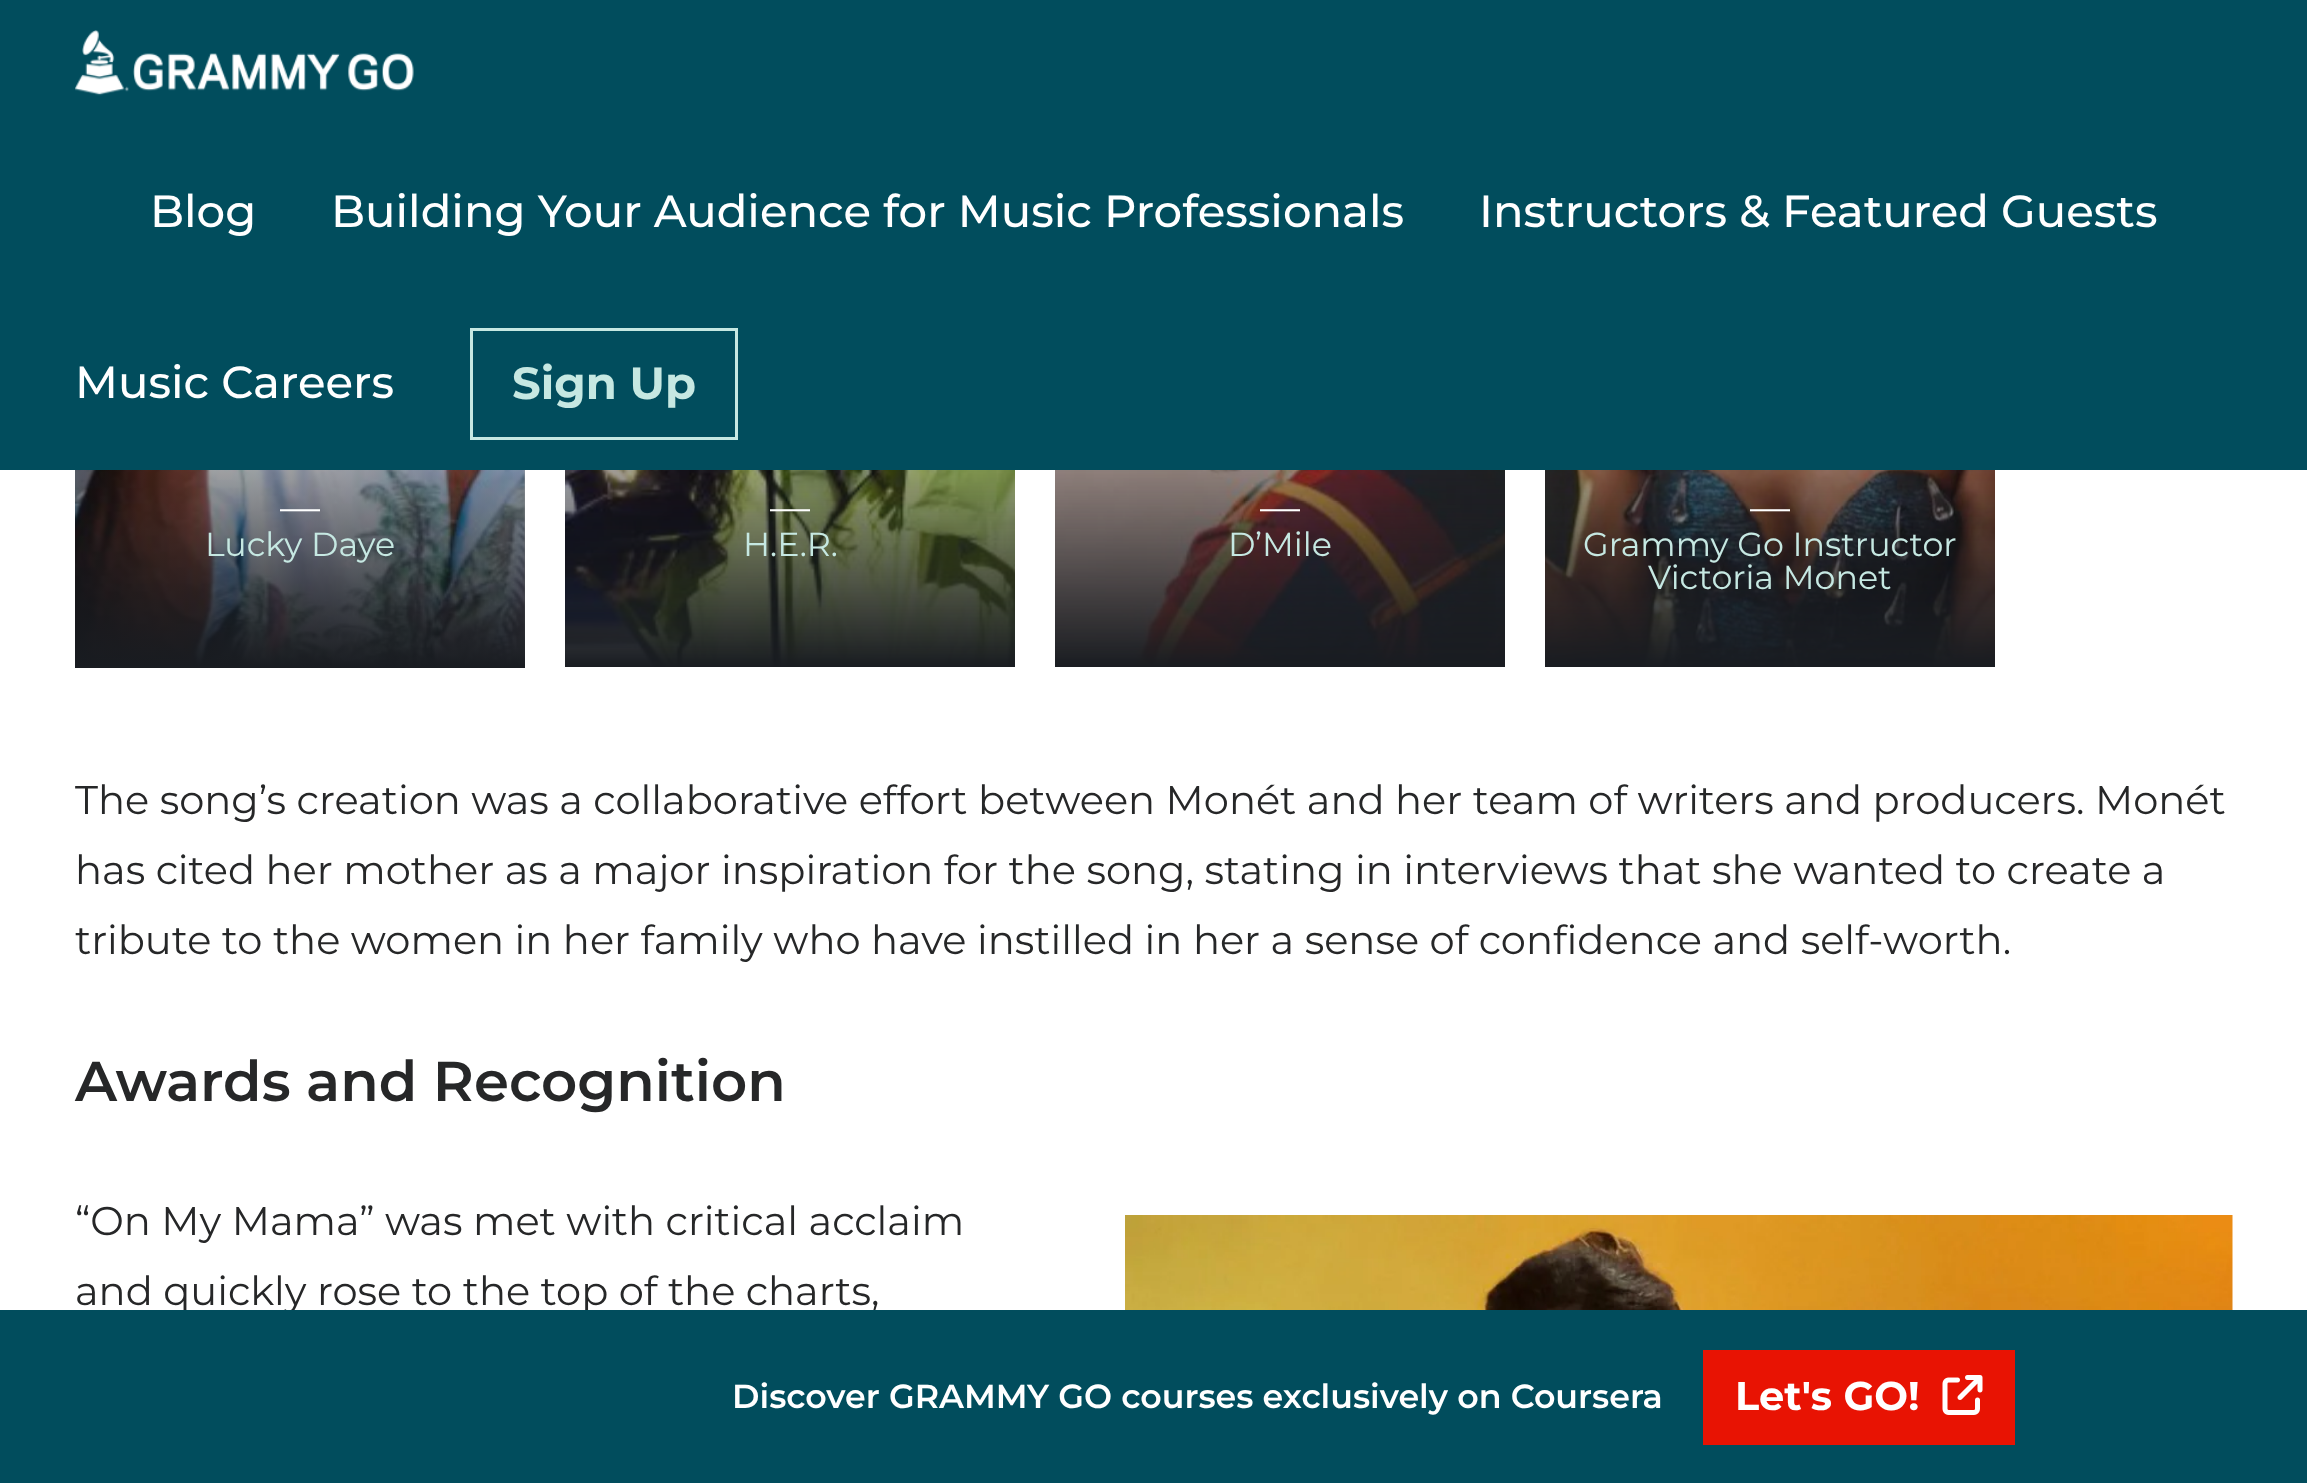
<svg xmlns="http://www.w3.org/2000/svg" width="2307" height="1483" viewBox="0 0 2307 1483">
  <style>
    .t1 { font: 500 45px Montserrat; fill: #fff; }
    .t2 { font: bold 45px Montserrat; fill: #c6e8e2; }
    .t3 { font: 40px Montserrat; fill: #fff; }
    .t4 { font: 33.3px Montserrat; fill: #c6e8e2; }
    .t5 { font: 40px Montserrat; fill: #262728; }
    .t6 { font: 600 56.2px Montserrat; fill: #262728; }
    .t7 { font: 600 33.3px Montserrat; fill: #fff; }
    .t8 { font: bold 40px Montserrat; fill: #fff; }
  </style>
  <defs>
    <linearGradient id="g1" gradientUnits="userSpaceOnUse" x1="300" y1="668" x2="300" y2="-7.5"><stop offset="0" stop-color="#191c21"/><stop offset="0.5" stop-color="#191c21" stop-opacity="0"/><stop offset="1" stop-color="#191c21" stop-opacity="0"/></linearGradient>
  </defs>
  <rect width="100%" height="100%" fill="#fff"/>
  <rect x="0" y="0" width="2307" height="470" fill="#014d5d"/>
  <image x="75" y="30" width="339" height="66" href="images/1.png"/>
  <text x="150" y="227" class="t1">Blog</text>
  <text x="331" y="227" class="t1">Building Your Audience for Music Professionals</text>
  <text x="1479" y="227" class="t1">Instructors &amp; Featured Guests</text>
  <text x="75" y="398" class="t1">Music Careers</text>
  <rect x="471.5" y="329.5" width="265" height="109" fill="none" stroke="#c6e8e2" stroke-width="3"/>
  <text x="512" y="399" class="t2">Sign Up</text>
  <image x="75" y="470" width="450" height="196" href="images/2.png"/>
  <rect x="75" y="470" width="450" height="198" fill="url(#g1)"/>
  <text x="280" y="521" class="t3">—</text>
  <text x="205" y="556" class="t4">Lucky Daye</text>
  <image x="565" y="470" width="450" height="197" href="images/3.png"/>
  <text x="770" y="521" class="t3">—</text>
  <text x="743" y="556" class="t4">H.E.R.</text>
  <image x="1055" y="470" width="450" height="197" href="images/4.png"/>
  <text x="1260" y="521" class="t3">—</text>
  <text x="1228" y="556" class="t4">D’Mile</text>
  <image x="1545" y="470" width="450" height="197" href="images/5.png"/>
  <text x="1750" y="521" class="t3">—</text>
  <text x="1583" y="556" class="t4">Grammy Go Instructor</text>
  <text x="1648" y="589" class="t4">Victoria Monet</text>
  <text x="75" y="814" class="t5">The song’s creation was a collaborative effort between Monét and her team of writers and producers. Monét</text>
  <text x="75" y="884" class="t5">has cited her mother as a major inspiration for the song, stating in interviews that she wanted to create a</text>
  <text x="75" y="954" class="t5">tribute to the women in her family who have instilled in her a sense of confidence and self-worth.</text>
  <text x="75" y="1101" class="t6">Awards and Recognition</text>
  <text x="75" y="1235" class="t5">“On My Mama” was met with critical acclaim</text>
  <text x="75" y="1305" class="t5">and quickly rose to the top of the charts,</text>
  <image x="1125" y="1215" width="1108" height="95" href="images/6.png"/>
  <rect x="0" y="1310" width="2307" height="173" fill="#014d5d"/>
  <text x="732" y="1408" class="t7">Discover GRAMMY GO courses exclusively on Coursera</text>
  <rect x="1703" y="1350" width="312" height="95" fill="#e81303"/>
  <text x="1735" y="1410" class="t8">Let's GO!</text>
  <image x="1942" y="1375" width="41" height="40" href="images/7.png"/>
</svg>
